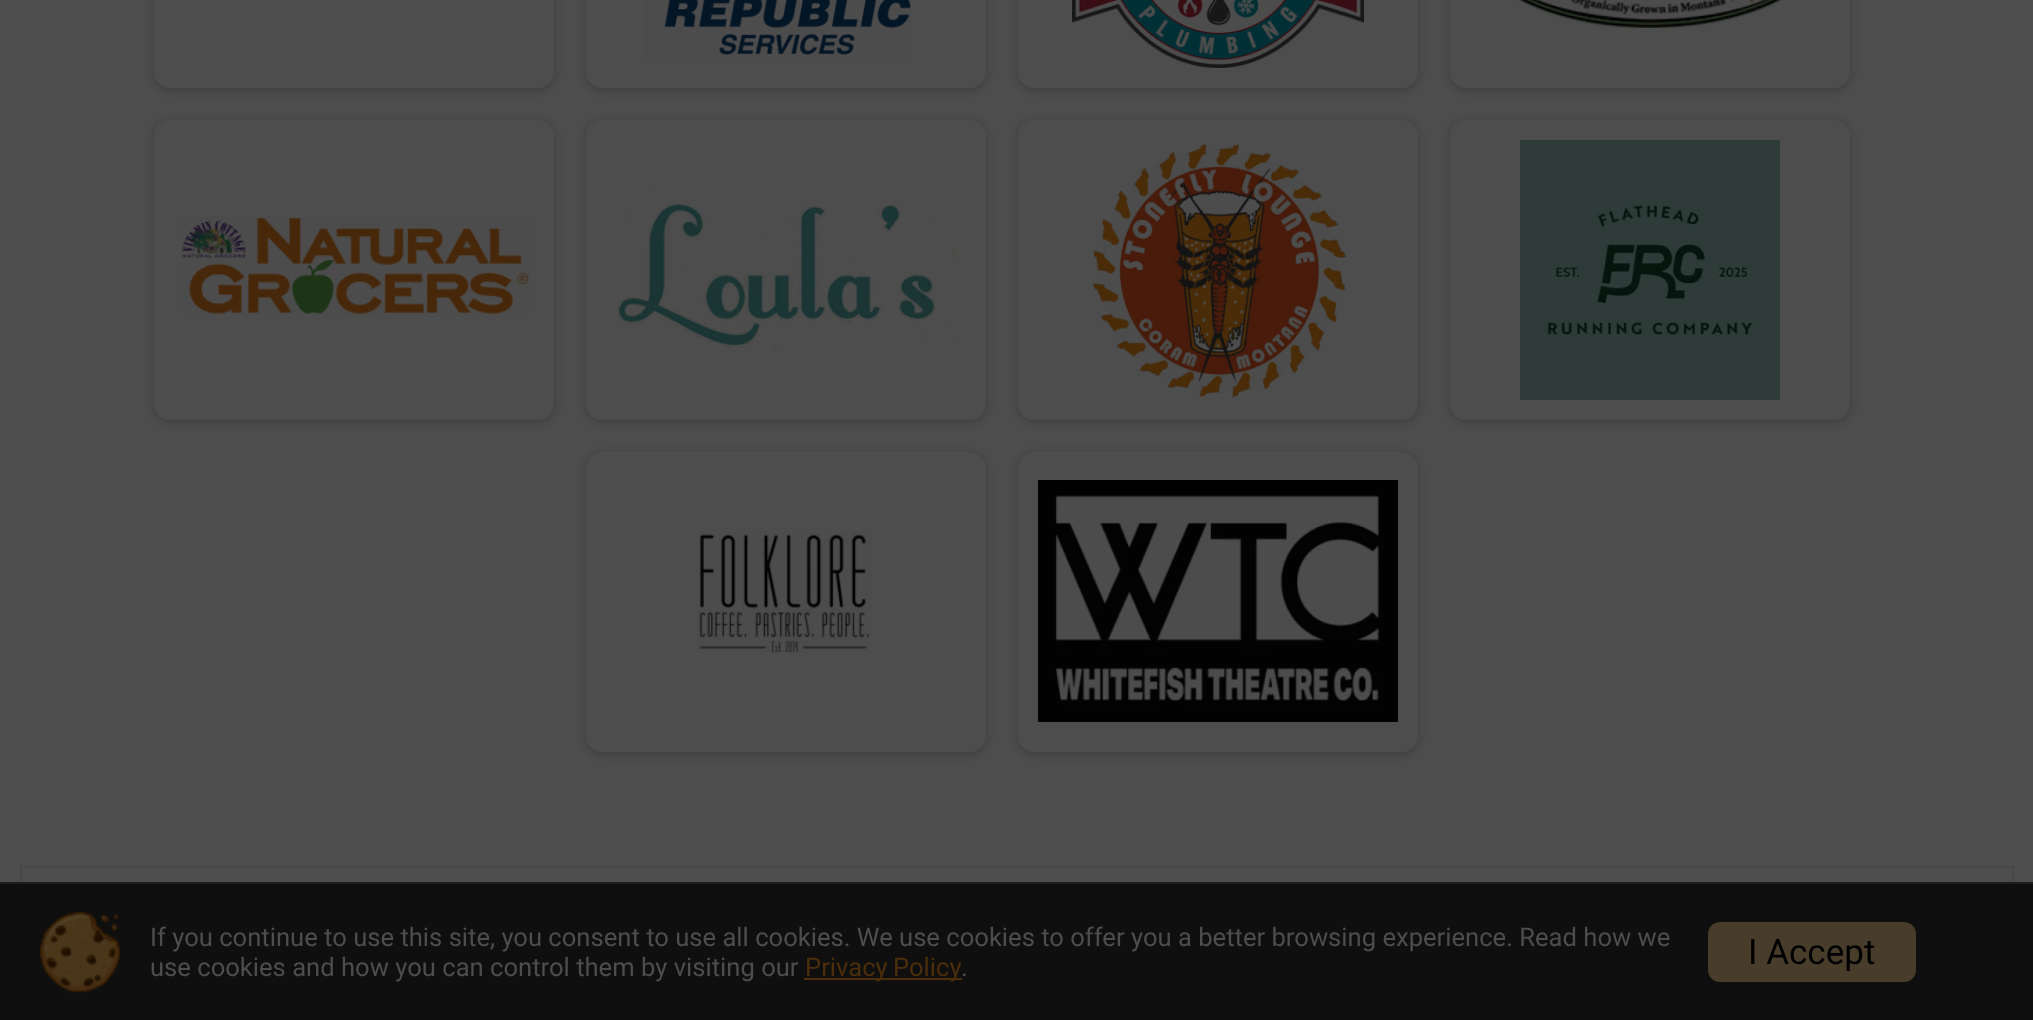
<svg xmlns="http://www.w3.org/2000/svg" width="2033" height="1020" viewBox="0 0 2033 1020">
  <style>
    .t1 { font: 25.6px Roboto; fill: #4d4d4d; }
    .t2 { font: 25.6px Roboto; fill: #4c2e0b; }
    .t3 { font: 35px Roboto; fill: #000; }
  </style>
  <rect width="100%" height="100%" fill="#4d4d4d"/>
  <rect x="154" y="-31" width="400" height="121" rx="16" fill="#00000033" filter="blur(5px)"/>
  <rect x="154" y="-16" width="400" height="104" rx="16" fill="#4d4d4d"/>
  <rect x="586" y="-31" width="400" height="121" rx="16" fill="#00000033" filter="blur(5px)"/>
  <rect x="586" y="-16" width="400" height="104" rx="16" fill="#4d4d4d"/>
  <image x="644" y="0" width="267" height="60" href="images/1.png"/>
  <rect x="1018" y="-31" width="400" height="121" rx="16" fill="#00000033" filter="blur(5px)"/>
  <rect x="1018" y="-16" width="400" height="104" rx="16" fill="#4d4d4d"/>
  <image x="1072" y="0" width="292" height="68" href="images/2.png"/>
  <rect x="1450" y="-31" width="400" height="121" rx="16" fill="#00000033" filter="blur(5px)"/>
  <rect x="1450" y="-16" width="400" height="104" rx="16" fill="#4d4d4d"/>
  <image x="1518" y="0" width="264" height="28" href="images/3.png"/>
  <rect x="154" y="122" width="400" height="300" rx="16" fill="#00000033" filter="blur(5px)"/>
  <rect x="154" y="120" width="400" height="300" rx="16" fill="#4d4d4d"/>
  <image x="182" y="217" width="348" height="98" href="images/4.png"/>
  <rect x="586" y="122" width="400" height="300" rx="16" fill="#00000033" filter="blur(5px)"/>
  <rect x="586" y="120" width="400" height="300" rx="16" fill="#4d4d4d"/>
  <image x="616" y="187" width="350" height="167" href="images/5.png"/>
  <rect x="1018" y="122" width="400" height="300" rx="16" fill="#00000033" filter="blur(5px)"/>
  <rect x="1018" y="120" width="400" height="300" rx="16" fill="#4d4d4d"/>
  <image x="1092" y="143" width="255" height="255" href="images/6.png"/>
  <rect x="1450" y="122" width="400" height="300" rx="16" fill="#00000033" filter="blur(5px)"/>
  <rect x="1450" y="120" width="400" height="300" rx="16" fill="#4d4d4d"/>
  <image x="1520" y="140" width="260" height="260" href="images/7.png"/>
  <rect x="586" y="454" width="400" height="300" rx="16" fill="#00000033" filter="blur(5px)"/>
  <rect x="586" y="452" width="400" height="300" rx="16" fill="#4d4d4d"/>
  <image x="698" y="532" width="174" height="121" href="images/8.png"/>
  <rect x="1018" y="454" width="400" height="300" rx="16" fill="#00000033" filter="blur(5px)"/>
  <rect x="1018" y="452" width="400" height="300" rx="16" fill="#4d4d4d"/>
  <image x="1038" y="480" width="360" height="242" href="images/9.png"/>
  <rect x="21" y="867" width="1992" height="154" fill="none" stroke="#484848" stroke-width="2"/>
  <rect x="0" y="884" width="2033" height="136" fill="#0f0f0f"/>
  <rect x="0" y="882" width="2033" height="2" fill="#1f1f1f"/>
  <image x="40" y="912" width="80" height="81" href="images/10.png"/>
  <text x="150" y="946" class="t1">If you continue to use this site, you consent to use all cookies. We use cookies to offer you a better browsing experience. Read how we</text>
  <text x="150" y="976" class="t1">use cookies and how you can control them by visiting our</text>
  <rect x="804" y="978" width="158" height="2" fill="#4c2e0b"/>
  <text x="805" y="976" word-spacing="-1" class="t2">Privacy Policy</text>
  <text x="961" y="976" class="t1">.</text>
  <rect x="1708" y="922" width="208" height="60" rx="12" fill="#483d2b"/>
  <text x="1748" y="964" class="t3">I Accept</text>
</svg>
